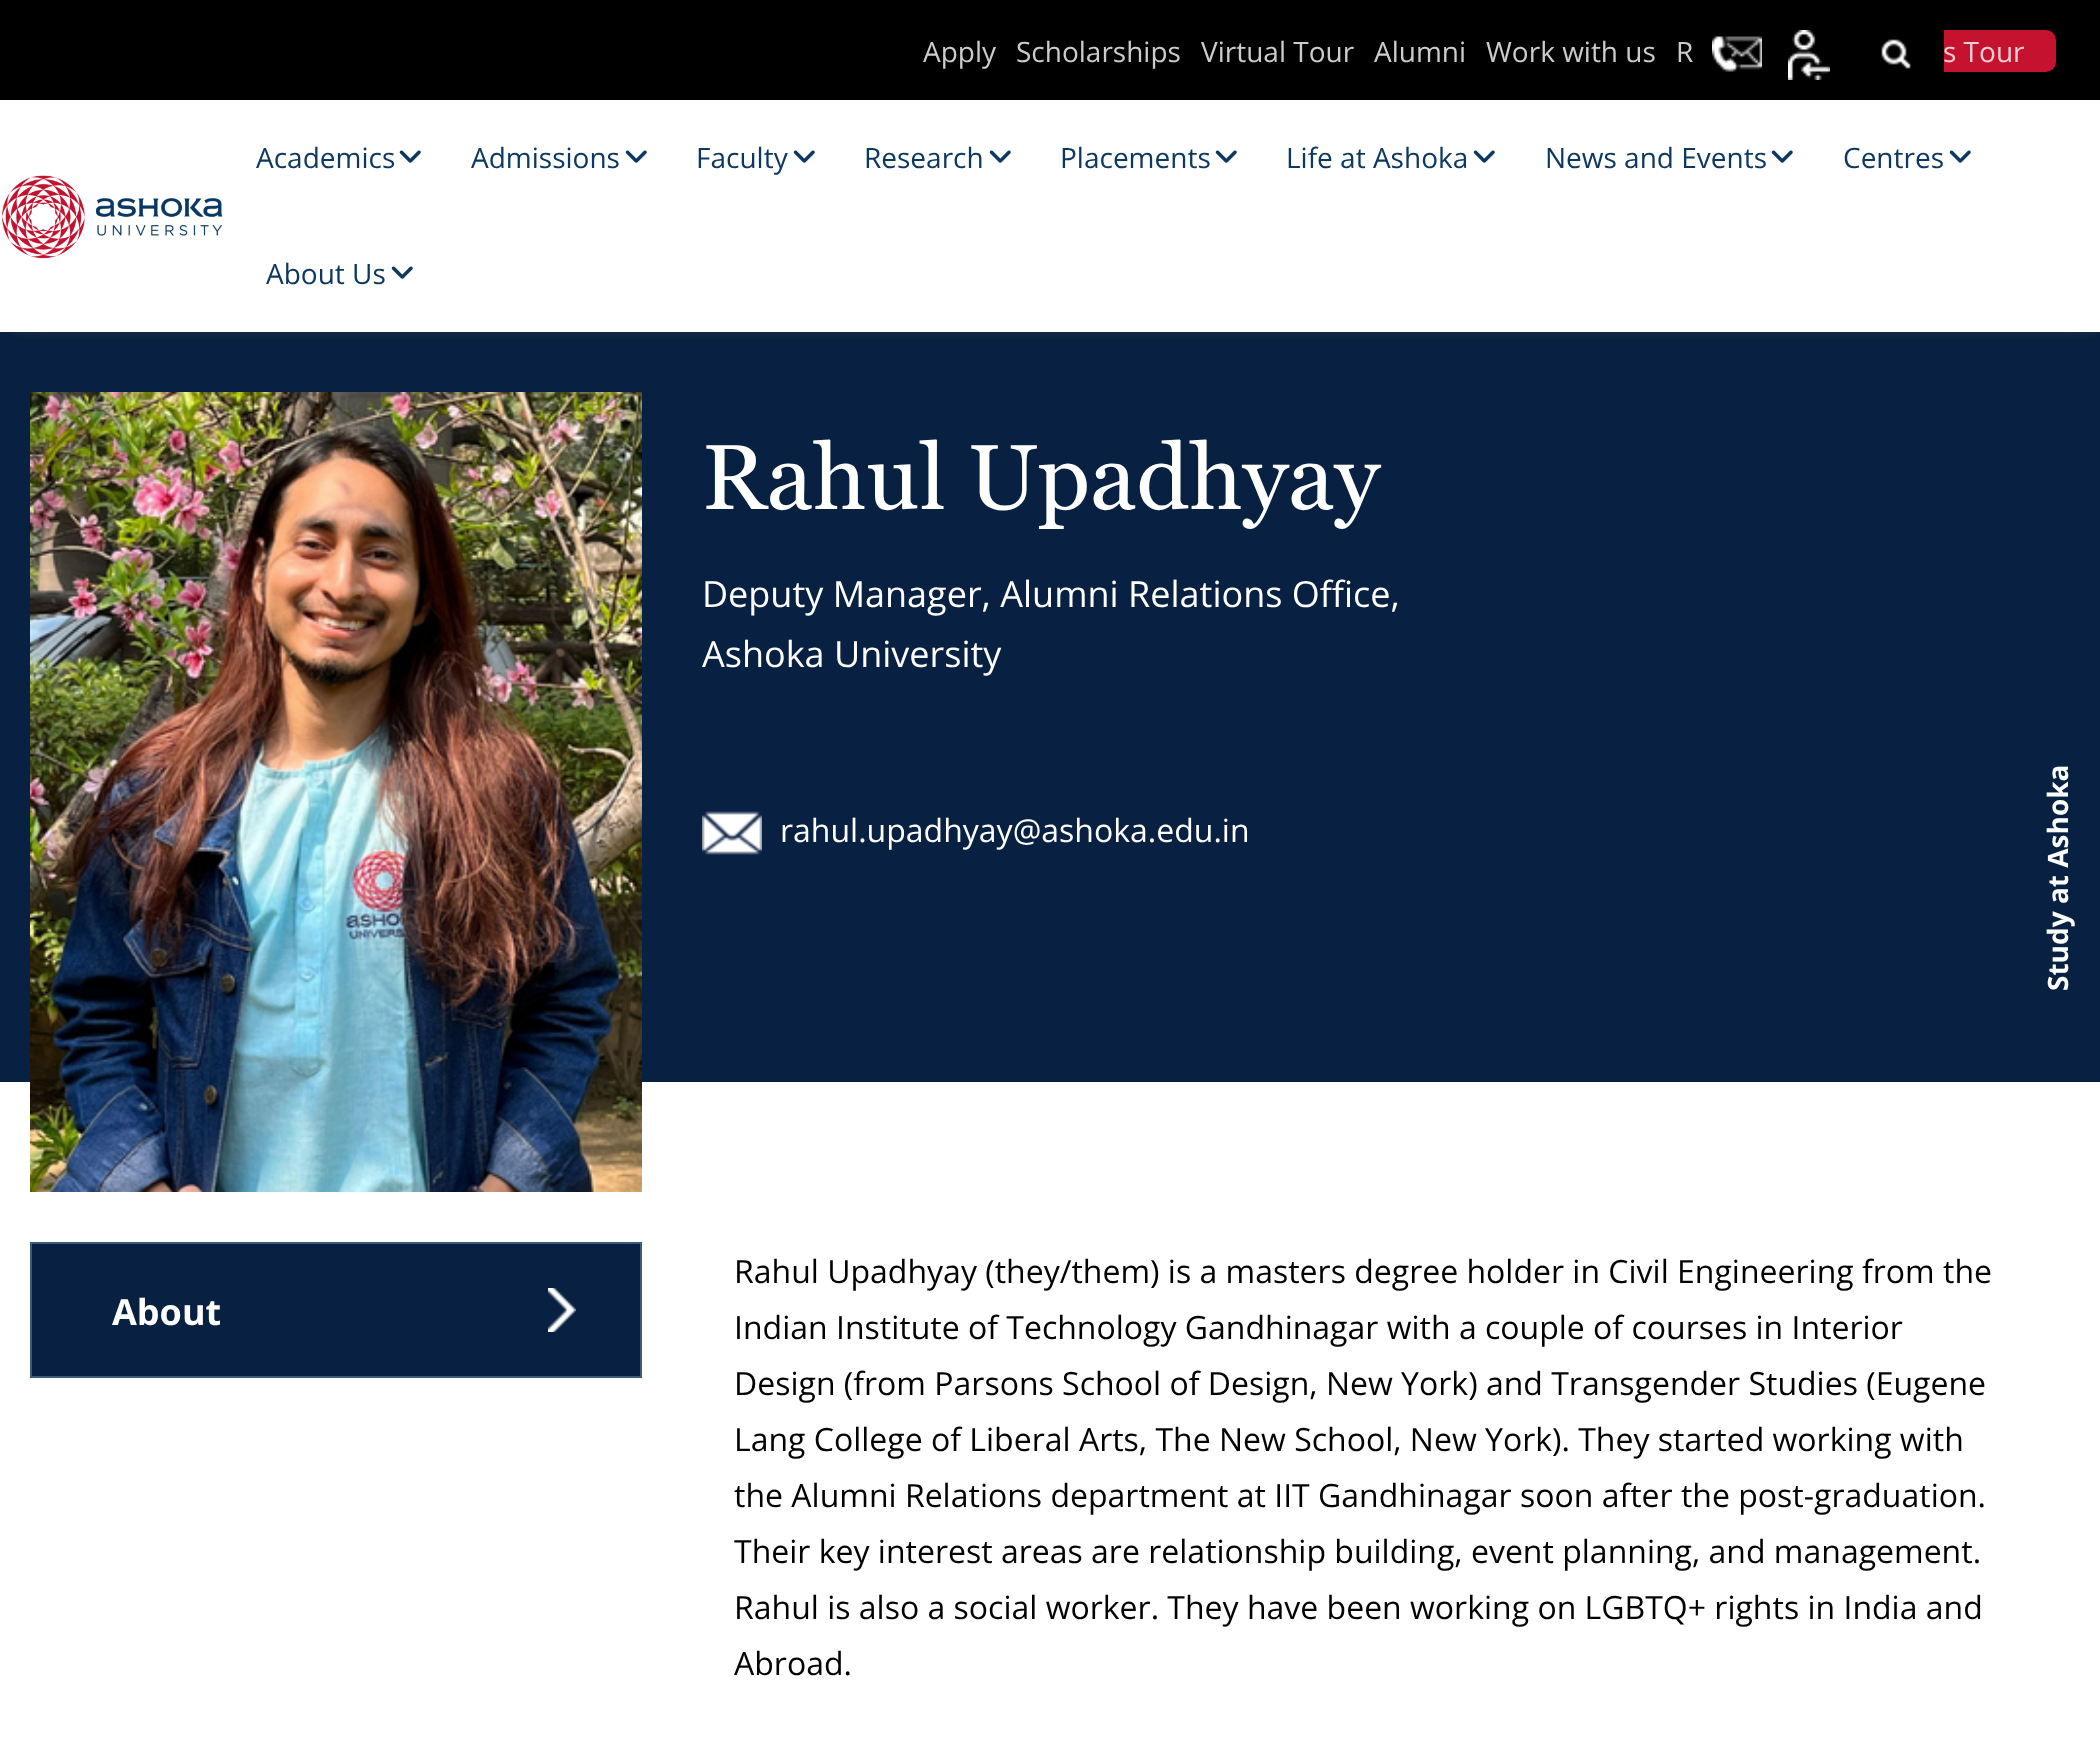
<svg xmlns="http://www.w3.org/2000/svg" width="2100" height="1753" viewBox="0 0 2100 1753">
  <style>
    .t1 { font: 28px Open Sans; fill: #ccc; }
    .t2 { font: 28px Open Sans; fill: #f3d0d5; }
    .t3 { font: 28px Open Sans; fill: #0d3862; }
    .t4 { font: 92px Georgia; fill: #fff; }
    .t5 { font: 36px Open Sans; fill: #fff; }
    .t6 { font: 32px Open Sans; fill: #fff; }
    .t7 { font: bold 28px Open Sans; fill: #fff; }
    .t8 { font: bold 36px Open Sans; fill: #fff; }
    .t9 { font: 32px Open Sans; fill: #010101; }
  </style>
  <defs>
    <clipPath id="clip1"><rect x="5" y="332" width="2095" height="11"/></clipPath>
  </defs>
  <rect width="100%" height="100%" fill="#fff"/>
  <rect x="0" y="332" width="2100" height="750" fill="#082041"/>
  <g clip-path="url(#clip1)">
    <rect x="16" y="10" width="2080" height="312" fill="#5a5a5a" filter="blur(10px)"/>
  </g>
  <rect x="0" y="0" width="2100" height="100" fill="#000"/>
  <image x="1712" y="36" width="50" height="36" href="images/1.png"/>
  <rect x="1820" y="30" width="236" height="42" rx="10" fill="#c4122f"/>
  <rect x="1820" y="30" width="124" height="42" fill="#000"/>
  <image x="1788" y="30" width="42" height="50" href="images/2.png"/>
  <image x="1881" y="39" width="30" height="30" href="images/3.png"/>
  <text x="923" y="62" class="t1">Apply</text>
  <text x="1016" y="62" class="t1">Scholarships</text>
  <text x="1201" y="62" class="t1">Virtual Tour</text>
  <text x="1374" y="62" class="t1">Alumni</text>
  <text x="1486" y="62" class="t1">Work with us</text>
  <text x="1676" y="62" class="t1">R</text>
  <text x="1943" y="62" class="t2">s Tour</text>
  <image x="1" y="175" width="222" height="84" href="images/4.png"/>
  <text x="256" y="168" class="t3">Academics</text>
  <image x="399" y="150" width="22" height="13" href="images/5.png"/>
  <text x="471" y="168" class="t3">Admissions</text>
  <image x="625" y="150" width="22" height="13" href="images/5.png"/>
  <text x="696" y="168" class="t3">Faculty</text>
  <image x="793" y="150" width="22" height="13" href="images/5.png"/>
  <text x="864" y="168" class="t3">Research</text>
  <image x="989" y="150" width="22" height="13" href="images/5.png"/>
  <text x="1060" y="168" class="t3">Placements</text>
  <image x="1215" y="150" width="22" height="13" href="images/5.png"/>
  <text x="1286" y="168" class="t3">Life at Ashoka</text>
  <image x="1473" y="150" width="22" height="13" href="images/5.png"/>
  <text x="1545" y="168" class="t3">News and Events</text>
  <image x="1771" y="150" width="22" height="13" href="images/5.png"/>
  <text x="1843" y="168" class="t3">Centres</text>
  <image x="1949" y="150" width="22" height="13" href="images/5.png"/>
  <text x="266" y="284" class="t3">About Us</text>
  <image x="391" y="266" width="22" height="13" href="images/5.png"/>
  <image x="30" y="392" width="612" height="800" href="images/6.png"/>
  <text x="702" y="509" class="t4">Rahul Upadhyay</text>
  <text x="702" y="607" class="t5">Deputy Manager, Alumni Relations Office,</text>
  <text x="702" y="667" class="t5">Ashoka University</text>
  <image x="702" y="811" width="60" height="44" href="images/7.png"/>
  <text x="780" y="842" class="t6">rahul.upadhyay@ashoka.edu.in</text>
  <text x="2068" y="991" transform="rotate(-90 2068 991)" class="t7">Study at Ashoka</text>
  <rect x="31" y="1243" width="610" height="134" fill="#082041" stroke="#3f5a79" stroke-width="2"/>
  <text x="112" y="1325" class="t8">About</text>
  <image x="548" y="1288" width="28" height="44" href="images/8.png"/>
  <text x="734" y="1283" class="t9">Rahul Upadhyay (they/them) is a masters degree holder in Civil Engineering from the</text>
  <text x="734" y="1339" class="t9">Indian Institute of Technology Gandhinagar with a couple of courses in Interior</text>
  <text x="734" y="1395" class="t9">Design (from Parsons School of Design, New York) and Transgender Studies (Eugene</text>
  <text x="734" y="1451" class="t9">Lang College of Liberal Arts, The New School, New York). They started working with</text>
  <text x="734" y="1507" class="t9">the Alumni Relations department at IIT Gandhinagar soon after the post-graduation.</text>
  <text x="734" y="1563" class="t9">Their key interest areas are relationship building, event planning, and management.</text>
  <text x="734" y="1619" class="t9">Rahul is also a social worker. They have been working on LGBTQ+ rights in India and</text>
  <text x="734" y="1675" class="t9">Abroad.</text>
</svg>
